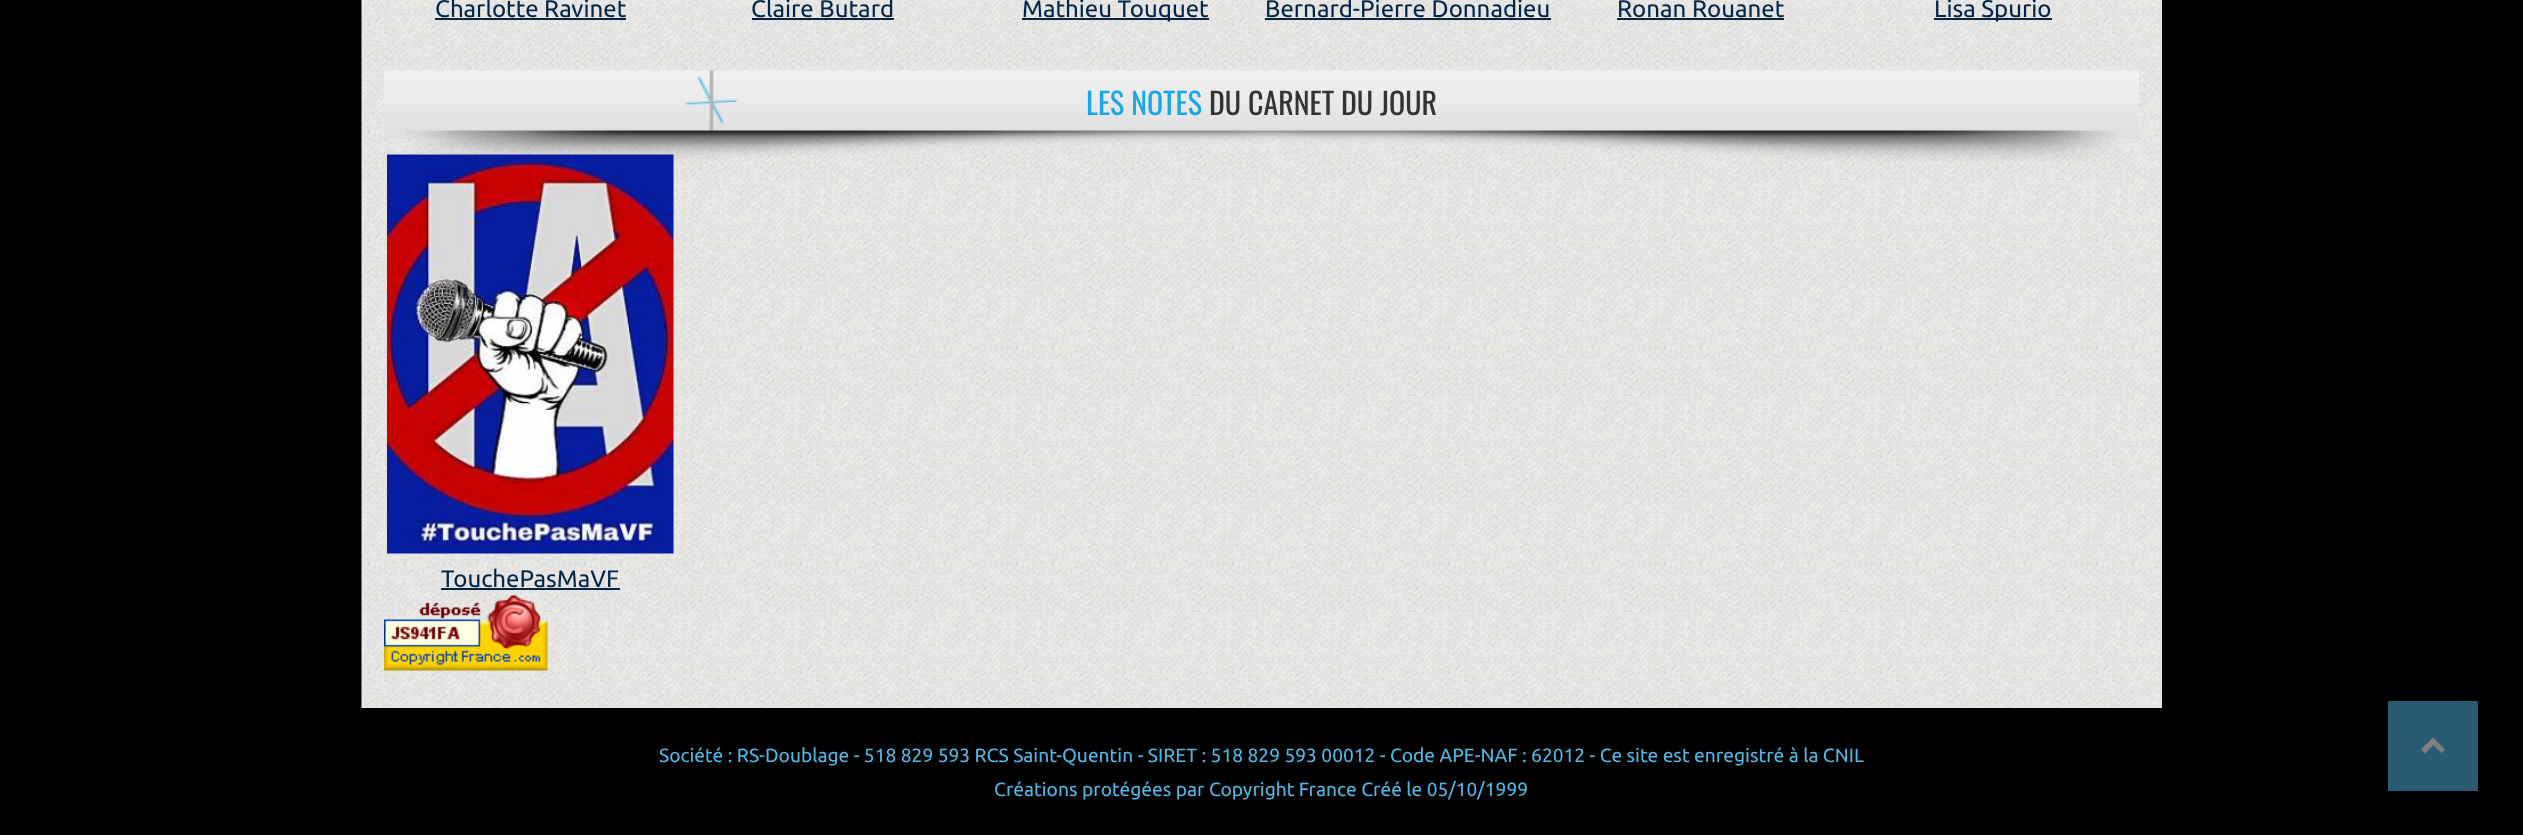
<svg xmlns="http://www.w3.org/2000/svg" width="2523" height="835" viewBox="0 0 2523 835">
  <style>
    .t1 { font: 24px Ubuntu; fill: #012648; }
    .t2 { font: 30px Oswald; fill: #1ba6e5; }
    .t3 { font: 30px Oswald; fill: #333; }
    .t4 { font: 19.2px Ubuntu; fill: #51b7e5; }
  </style>
  <rect width="100%" height="100%" fill="#000"/>
  <rect x="2161" y="0" width="1" height="708" fill="#ddd"/>
  <image x="361" y="0" width="1801" height="708" href="images/1.png"/>
  <text x="435" y="17" class="t1">Charlotte Ravinet</text>
  <rect x="435" y="18" width="191" height="2" fill="#012648"/>
  <text x="751" y="17" class="t1">Claire Butard</text>
  <rect x="752" y="18" width="142" height="2" fill="#012648"/>
  <rect x="1022" y="18" width="187" height="2" fill="#012648"/>
  <text x="1022" y="17" class="t1">Mathieu Touquet</text>
  <text x="1265" y="17" class="t1">Bernard-Pierre Donnadieu</text>
  <rect x="1265" y="18" width="286" height="2" fill="#012648"/>
  <text x="1617" y="17" class="t1">Ronan Rouanet</text>
  <rect x="1617" y="18" width="167" height="2" fill="#012648"/>
  <rect x="1934" y="18" width="118" height="2" fill="#012648"/>
  <text x="1934" y="17" class="t1">Lisa Spurio</text>
  <rect x="384" y="139" width="1755" height="1" fill="#eee"/>
  <image x="384" y="70" width="1755" height="70" href="images/2.png"/>
  <image x="685" y="70" width="52" height="61" href="images/3.png"/>
  <text x="1086" y="115" class="t2">LES NOTES</text>
  <text x="1209" y="115" class="t3">DU CARNET DU JOUR</text>
  <image x="406" y="130" width="1711" height="31" href="images/4.png"/>
  <image x="387" y="154" width="287" height="400" href="images/5.png"/>
  <text x="441" y="587" class="t1">TouchePasMaVF</text>
  <rect x="441" y="588" width="179" height="2" fill="#012648"/>
  <image x="384" y="595" width="164" height="76" href="images/6.png"/>
  <rect x="2388" y="701" width="90" height="90" fill="#295c73"/>
  <path d="M2433 737.5L2445 749.5L2441.5 753L2433 745L2425 753.5L2421 749.5Z" fill="#808080"/>
  <text x="659" y="762" class="t4">Société : RS-Doublage - 518 829 593 RCS Saint-Quentin - SIRET : 518 829 593 00012 - Code APE-NAF : 62012 - Ce site est enregistré à la CNIL</text>
  <text x="994" y="796" class="t4">Créations protégées par Copyright France Créé le 05/10/1999</text>
</svg>
